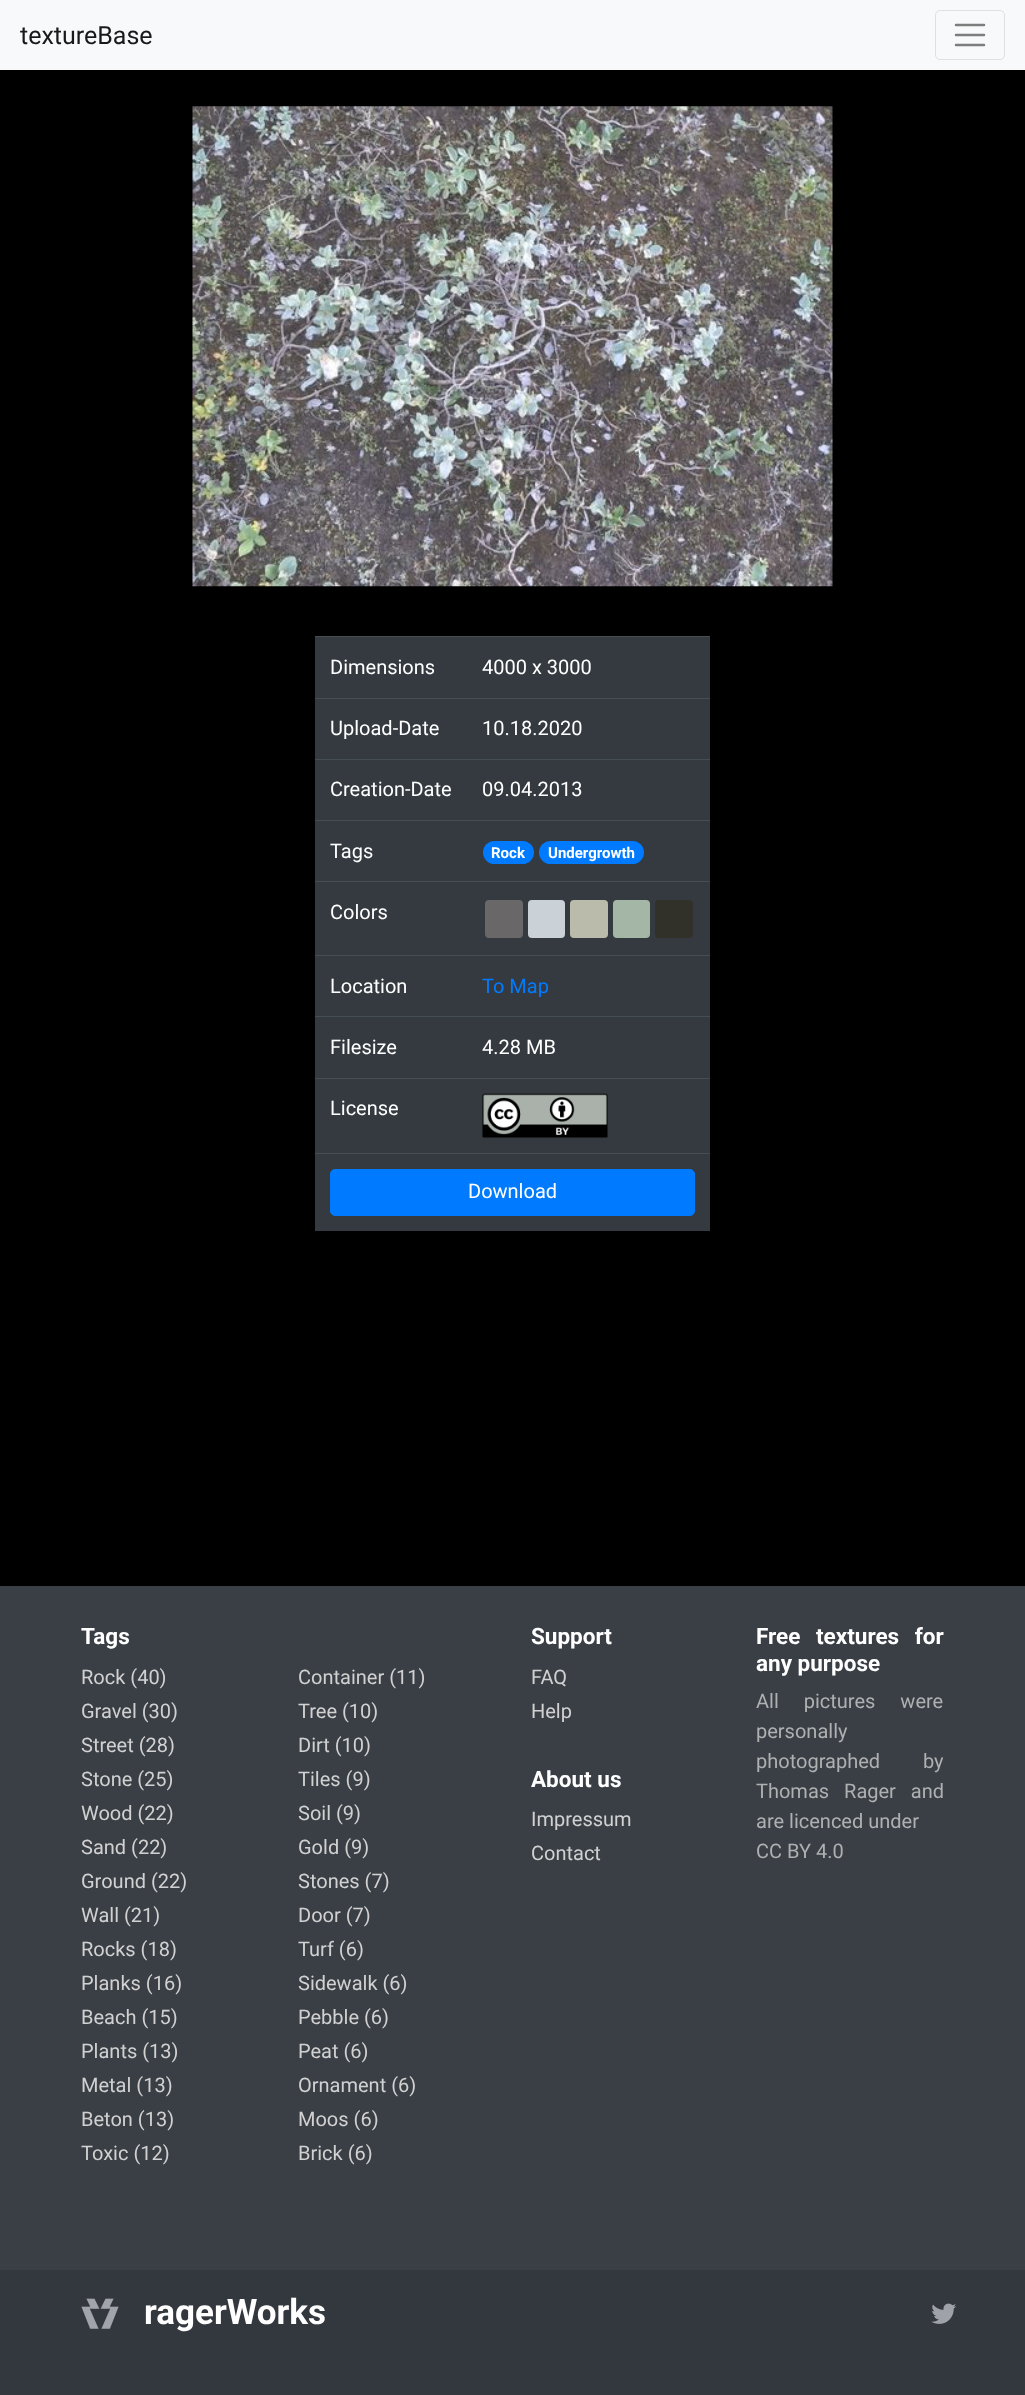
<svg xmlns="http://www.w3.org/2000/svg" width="1025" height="2395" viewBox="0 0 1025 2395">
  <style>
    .t1 { font: 25px Roboto; fill: #191919; }
    .t2 { font: 20px Roboto; fill: #fff; }
    .t3 { font: bold 15px Roboto; fill: #fff; }
    .t4 { font: 20px Roboto; fill: #007bff; }
    .t5 { font: bold 22.5px Roboto; fill: #fff; }
    .t6 { font: 20px Roboto; fill: #d2d1d1; }
    .t7 { font: 20px Roboto; fill: #afb0b1; }
    .t8 { font: bold 35px Roboto; fill: #fff; }
  </style>
  <rect width="100%" height="100%" fill="#000"/>
  <rect x="0" y="0" width="1025" height="70" fill="#f8f9fa"/>
  <text x="20" y="44" class="t1">textureBase</text>
  <rect x="935.5" y="10.5" width="69" height="49" rx="4.5" fill="none" stroke="#dfe0e1"/>
  <path d="M956 25H984M956 35H984M956 45H984" fill="none" stroke="#7c7d7d" stroke-width="2.5" stroke-linecap="round"/>
  <image x="192" y="106" width="641" height="481" href="images/1.png"/>
  <rect x="315" y="637" width="395" height="594" fill="#343a40"/>
  <text x="330" y="674" class="t2">Dimensions</text>
  <rect x="315" y="636" width="395" height="1" fill="#454d55"/>
  <text x="482" y="674" class="t2">4000 x 3000</text>
  <text x="330" y="735" class="t2">Upload-Date</text>
  <rect x="315" y="698" width="395" height="1" fill="#454d55"/>
  <text x="482" y="735" class="t2">10.18.2020</text>
  <text x="330" y="796" class="t2">Creation-Date</text>
  <rect x="315" y="759" width="395" height="1" fill="#454d55"/>
  <text x="482" y="796" class="t2">09.04.2013</text>
  <text x="330" y="858" class="t2">Tags</text>
  <rect x="315" y="820" width="395" height="1" fill="#454d55"/>
  <rect x="483" y="841" width="51" height="23" rx="11.5" fill="#007bff"/>
  <text x="491" y="858" class="t3">Rock</text>
  <rect x="539" y="841" width="105" height="23" rx="11.5" fill="#007bff"/>
  <text x="548" y="858" class="t3">Undergrowth</text>
  <rect x="315" y="881" width="395" height="1" fill="#454d55"/>
  <rect x="485" y="900" width="38" height="38" rx="4" fill="#6a6768"/>
  <rect x="528" y="900" width="37" height="38" rx="4" fill="#cad1d7"/>
  <rect x="570" y="900" width="38" height="38" rx="4" fill="#babbab"/>
  <rect x="613" y="900" width="37" height="38" rx="4" fill="#a4b7a7"/>
  <rect x="655" y="900" width="38" height="38" rx="4" fill="#323129"/>
  <text x="330" y="919" class="t2">Colors</text>
  <text x="330" y="993" class="t2">Location</text>
  <rect x="315" y="955" width="395" height="1" fill="#454d55"/>
  <text x="482" y="993" class="t4">To Map</text>
  <text x="330" y="1054" class="t2">Filesize</text>
  <rect x="315" y="1016" width="395" height="1" fill="#454d55"/>
  <text x="482" y="1054" class="t2">4.28 MB</text>
  <rect x="315" y="1078" width="395" height="1" fill="#454d55"/>
  <image x="482" y="1093" width="126" height="45" href="images/2.png"/>
  <text x="330" y="1115" class="t2">License</text>
  <rect x="315" y="1153" width="395" height="1" fill="#454d55"/>
  <rect x="330.5" y="1169.5" width="364" height="46" rx="4.5" fill="#007bff" stroke="#007bff"/>
  <text x="468" y="1198" class="t2">Download</text>
  <rect x="0" y="1586" width="1025" height="684" fill="#3a3f46"/>
  <text x="81" y="1644" class="t5">Tags</text>
  <text x="81" y="1684" class="t6">Rock (40)</text>
  <text x="298" y="1684" class="t6">Container (11)</text>
  <text x="81" y="1718" class="t6">Gravel (30)</text>
  <text x="298" y="1718" class="t6">Tree (10)</text>
  <text x="81" y="1752" class="t6">Street (28)</text>
  <text x="298" y="1752" class="t6">Dirt (10)</text>
  <text x="81" y="1786" class="t6">Stone (25)</text>
  <text x="298" y="1786" class="t6">Tiles (9)</text>
  <text x="81" y="1820" class="t6">Wood (22)</text>
  <text x="298" y="1820" class="t6">Soil (9)</text>
  <text x="81" y="1854" class="t6">Sand (22)</text>
  <text x="298" y="1854" class="t6">Gold (9)</text>
  <text x="81" y="1888" class="t6">Ground (22)</text>
  <text x="298" y="1888" class="t6">Stones (7)</text>
  <text x="81" y="1922" class="t6">Wall (21)</text>
  <text x="298" y="1922" class="t6">Door (7)</text>
  <text x="81" y="1956" class="t6">Rocks (18)</text>
  <text x="298" y="1956" class="t6">Turf (6)</text>
  <text x="81" y="1990" class="t6">Planks (16)</text>
  <text x="298" y="1990" class="t6">Sidewalk (6)</text>
  <text x="81" y="2024" class="t6">Beach (15)</text>
  <text x="298" y="2024" class="t6">Pebble (6)</text>
  <text x="81" y="2058" class="t6">Plants (13)</text>
  <text x="298" y="2058" class="t6">Peat (6)</text>
  <text x="81" y="2092" class="t6">Metal (13)</text>
  <text x="298" y="2092" class="t6">Ornament (6)</text>
  <text x="81" y="2126" class="t6">Beton (13)</text>
  <text x="298" y="2126" class="t6">Moos (6)</text>
  <text x="81" y="2160" class="t6">Toxic (12)</text>
  <text x="298" y="2160" class="t6">Brick (6)</text>
  <text x="531" y="1644" class="t5">Support</text>
  <text x="531" y="1684" class="t6">FAQ</text>
  <text x="531" y="1718" class="t6">Help</text>
  <text x="531" y="1787" class="t5">About us</text>
  <text x="531" y="1826" class="t6">Impressum</text>
  <text x="531" y="1860" class="t6">Contact</text>
  <text x="756" y="1644" word-spacing="10" class="t5">Free textures for</text>
  <text x="756" y="1671" class="t5">any purpose</text>
  <text x="756" y="1708" word-spacing="20" class="t7">All pictures were</text>
  <text x="756" y="1738" class="t7">personally</text>
  <text x="756" y="1768" word-spacing="38" class="t7">photographed by</text>
  <text x="756" y="1798" word-spacing="10" class="t7">Thomas Rager and</text>
  <text x="756" y="1828" class="t7">are licenced under</text>
  <text x="756" y="1858" class="t7">CC BY 4.0</text>
  <rect x="0" y="2270" width="1025" height="125" fill="#33373e"/>
  <image x="81" y="2298" width="38" height="31" href="images/3.png"/>
  <text x="144" y="2324" class="t8">ragerWorks</text>
  <image x="931" y="2303" width="25" height="21" href="images/4.png"/>
</svg>
